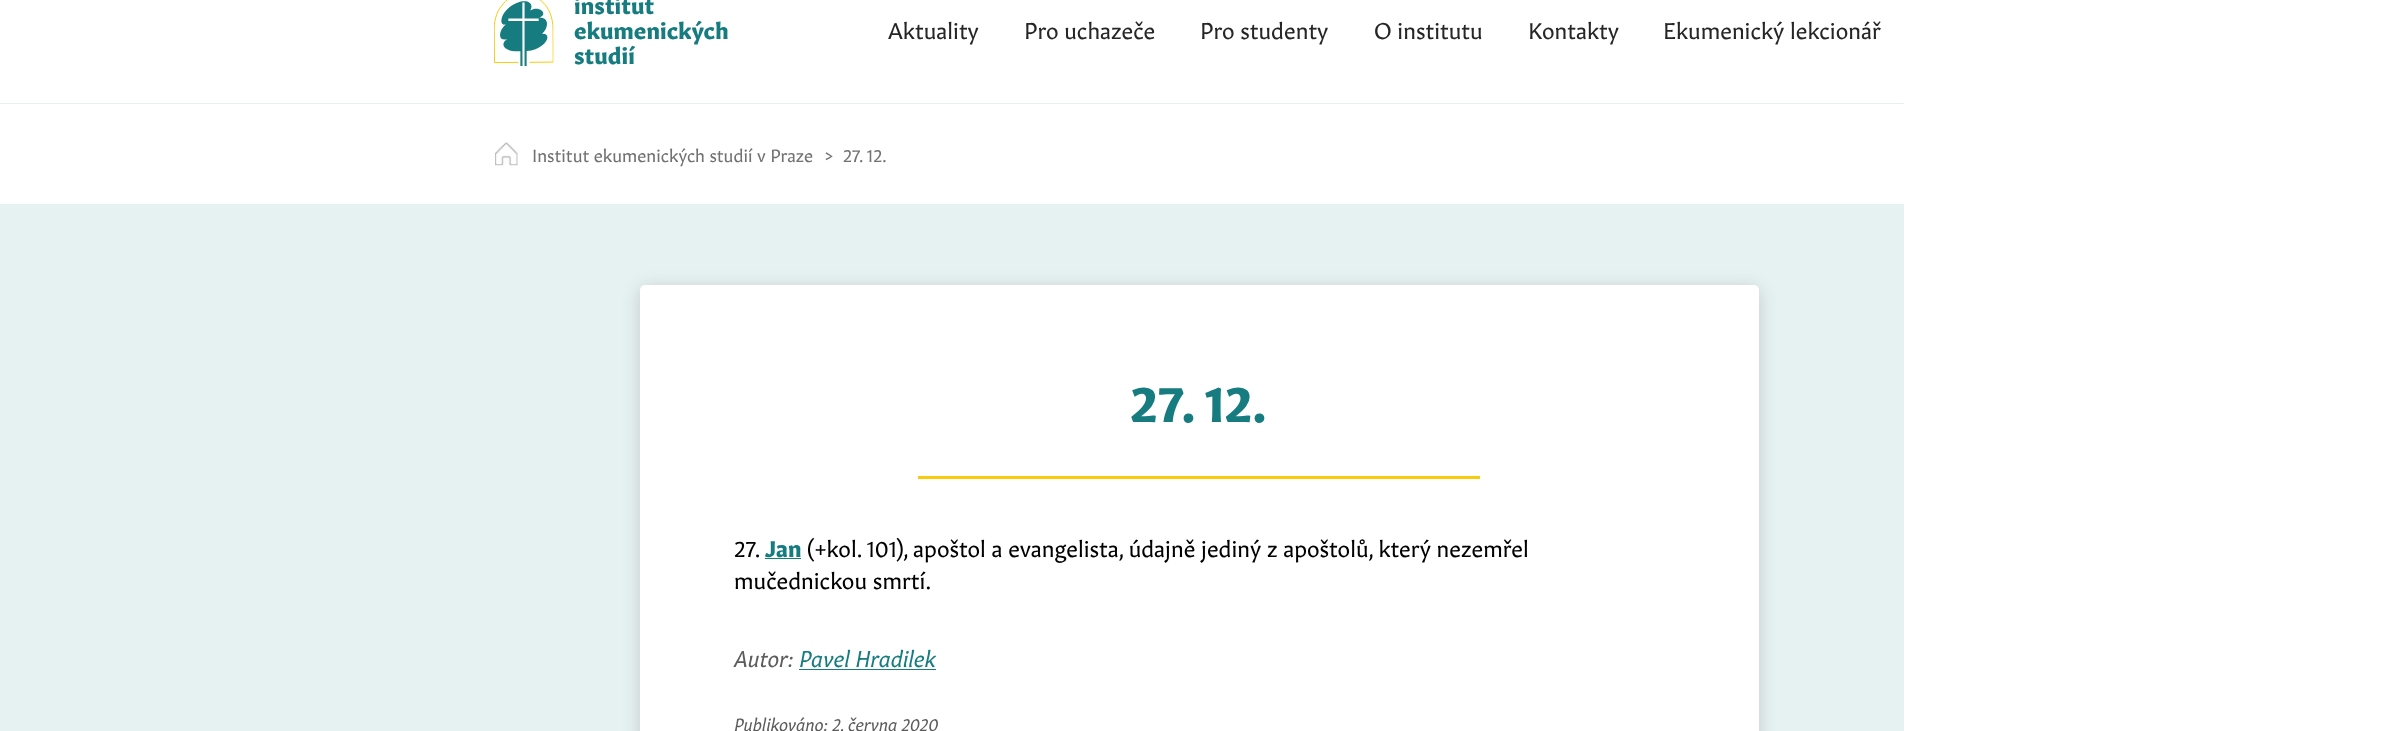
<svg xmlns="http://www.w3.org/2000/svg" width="2397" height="731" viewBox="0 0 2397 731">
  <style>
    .t1 { font: bold 22.5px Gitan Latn; letter-spacing: 0.1px; fill: #167c80; }
    .t2 { font: 22.5px Gitan Latn; fill: #262626; }
    .t3 { font: 17.5px Gitan Latn; fill: #727272; }
    .t4 { font: bold 50px Gitan Latn; letter-spacing: 0.25px; fill: #167c80; }
    .t5 { font: 22.5px Gitan Latn; fill: #000; }
    .t6 { font: bold 22.5px Gitan Latn; fill: #167c80; }
    .t7 { font: italic 22.5px Gitan Latn; fill: #5c5c5c; }
    .t8 { font: italic 22.5px Gitan Latn; fill: #167c80; }
    .t9 { font: italic 17.5px Gitan Latn; fill: #5c5c5c; }
  </style>
  <rect width="100%" height="100%" fill="#fff"/>
  <rect x="0" y="103" width="1904" height="1" fill="#e6f1f1"/>
  <image x="494" y="0" width="60" height="66" href="images/1.png"/>
  <text x="574" y="14" class="t1">institut</text>
  <text x="574" y="39" class="t1">ekumenických</text>
  <text x="574" y="64" class="t1">studií</text>
  <text x="888" y="39" class="t2">Aktuality</text>
  <text x="1024" y="39" class="t2">Pro uchazeče</text>
  <text x="1200" y="39" class="t2">Pro studenty</text>
  <text x="1374" y="39" class="t2">O institutu</text>
  <text x="1528" y="39" class="t2">Kontakty</text>
  <text x="1663" y="39" class="t2">Ekumenický lekcionář</text>
  <image x="495" y="142" width="23" height="24" href="images/2.png"/>
  <text x="532" y="162" class="t3">Institut ekumenických studií v Praze</text>
  <text x="824" y="162" class="t3">&gt;</text>
  <text x="843" y="162" class="t3">27. 12.</text>
  <rect x="0" y="204" width="1904" height="527" fill="#e6f1f1"/>
  <rect x="640" y="288" width="1119" height="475" rx="5" fill="#00000026" filter="blur(9px)"/>
  <rect x="640" y="285" width="1119" height="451" rx="5" fill="#fff"/>
  <text x="1130" y="422" class="t4">27. 12.</text>
  <rect x="918" y="476" width="562" height="3" fill="#faca0c"/>
  <text x="734" y="557" class="t5">27.</text>
  <text x="765" y="557" class="t6">Jan</text>
  <rect x="765" y="558" width="36" height="1" fill="#167c80"/>
  <text x="807" y="557" class="t5">(+kol. 101), apoštol a evangelista, údajně jediný z apoštolů, který nezemřel</text>
  <text x="734" y="589" class="t5">mučednickou smrtí.</text>
  <text x="734" y="667" class="t7">Autor:</text>
  <text x="799" y="667" class="t8">Pavel Hradilek</text>
  <rect x="799" y="669" width="137" height="1" fill="#167c80"/>
  <text x="734" y="731" class="t9">Publikováno: 2. června 2020</text>
</svg>
